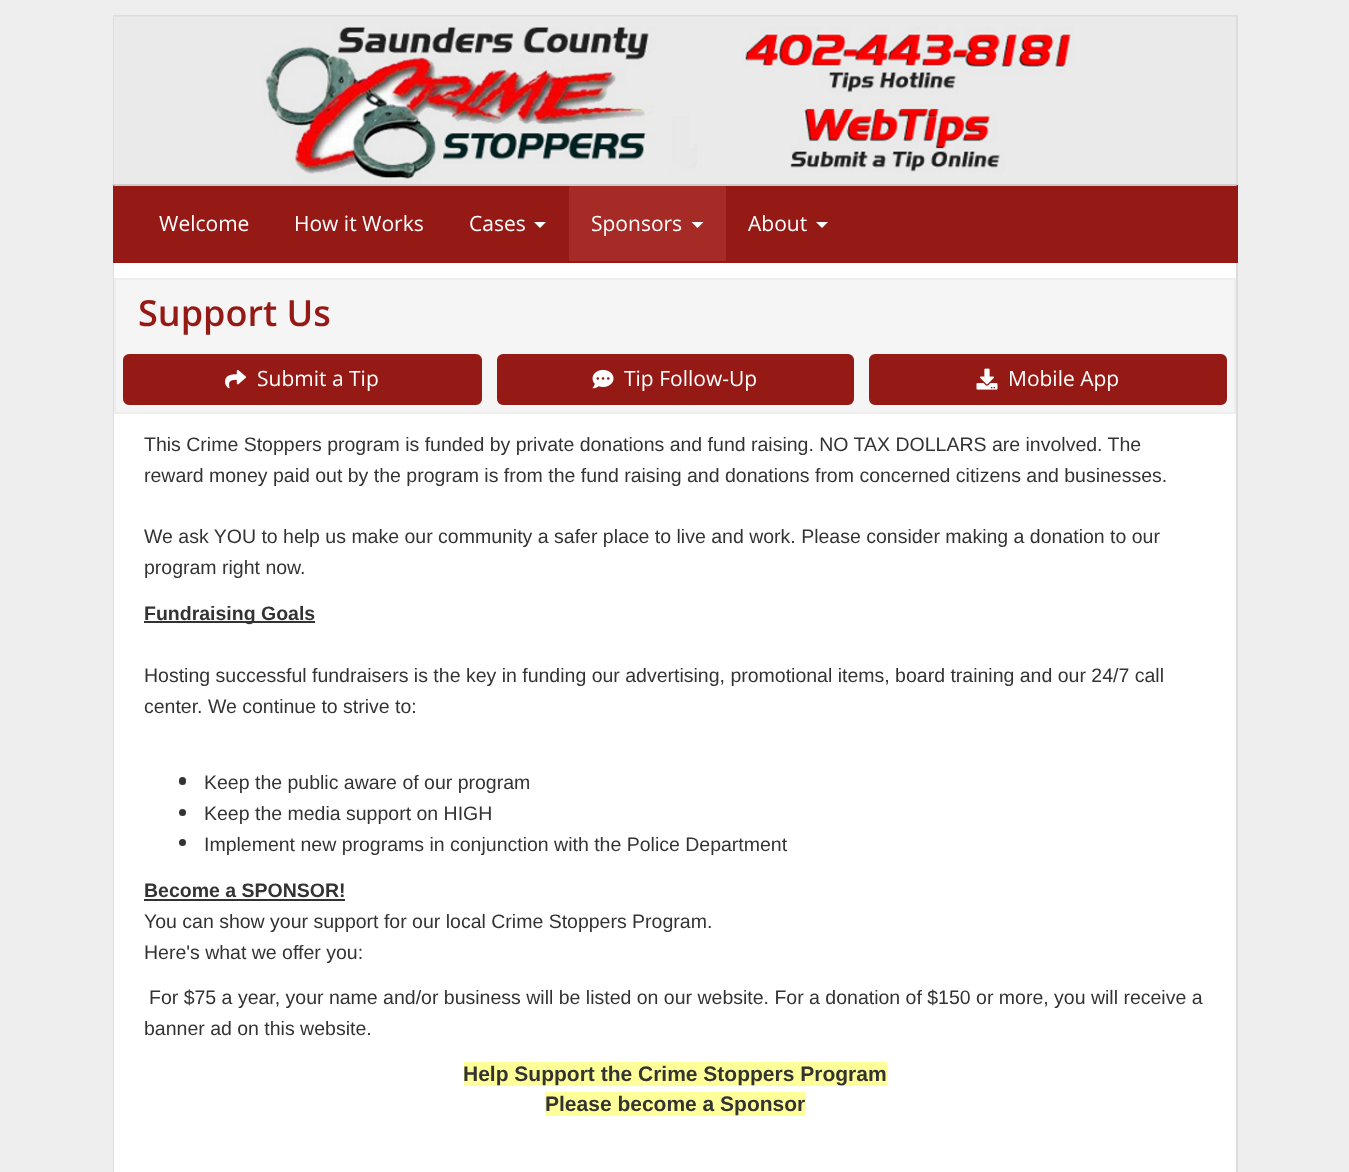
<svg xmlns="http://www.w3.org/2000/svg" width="1349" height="1172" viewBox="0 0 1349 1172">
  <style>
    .t1 { font: 21px Open Sans; fill: #fff; }
    .t2 { font: 600 36px Open Sans; fill: #951a15; }
    .t3 { font: 19.5px Liberation Sans; fill: #333; }
    .t4 { font: bold 19.5px Liberation Sans; fill: #333; }
    .t5 { font: bold 21px Liberation Sans; fill: #333; }
  </style>
  <rect width="100%" height="100%" fill="#eee"/>
  <rect x="113" y="15" width="1125" height="2" fill="#ddd"/>
  <rect x="1236" y="15" width="2" height="170" fill="#ddd"/>
  <rect x="113" y="15" width="2" height="170" fill="#ddd"/>
  <image x="114" y="16" width="1122" height="168" href="images/1.png"/>
  <rect x="113" y="185" width="1125" height="78" fill="#951a15"/>
  <path d="M112 184H1238L1236 186H114Z" fill="#ccc"/>
  <text x="159" y="231" class="t1">Welcome</text>
  <text x="294" y="231" class="t1">How it Works</text>
  <text x="469" y="231" class="t1">Cases</text>
  <path d="M534 222H546L540 228Z" fill="#fff"/>
  <rect x="569" y="186" width="157" height="75" fill="#a62b26"/>
  <text x="591" y="231" class="t1">Sponsors</text>
  <path d="M691.5 222H703.5L697.5 228Z" fill="#fff"/>
  <text x="748" y="231" class="t1">About</text>
  <path d="M816 222H828L822 228Z" fill="#fff"/>
  <rect x="114" y="263" width="1122" height="15" fill="#fff"/>
  <rect x="1236" y="263" width="2" height="909" fill="#ddd"/>
  <rect x="113" y="263" width="1" height="909" fill="#ddd"/>
  <rect x="114" y="414" width="1122" height="758" fill="#fff"/>
  <rect x="116" y="280" width="1118" height="132" fill="#f5f5f5"/>
  <text x="138" y="326" class="t2">Support Us</text>
  <rect x="124" y="355" width="357" height="49" rx="5" fill="#951a15" stroke="#951a15" stroke-width="2"/>
  <image x="225" y="370" width="21" height="19" href="images/2.png"/>
  <text x="257" y="386" class="t1">Submit a Tip</text>
  <rect x="498" y="355" width="355" height="49" rx="5" fill="#951a15" stroke="#951a15" stroke-width="2"/>
  <image x="592" y="369" width="22" height="20" href="images/3.png"/>
  <text x="624" y="386" class="t1">Tip Follow-Up</text>
  <rect x="870" y="355" width="356" height="49" rx="5" fill="#951a15" stroke="#951a15" stroke-width="2"/>
  <image x="976" y="368" width="22" height="22" href="images/4.png"/>
  <text x="1008" y="386" class="t1">Mobile App</text>
  <text x="144" y="451" class="t3">This Crime Stoppers program is funded by private donations and fund raising. NO TAX DOLLARS are involved. The</text>
  <text x="144" y="482" class="t3">reward money paid out by the program is from the fund raising and donations from concerned citizens and businesses.</text>
  <text x="144" y="543" class="t3">We ask YOU to help us make our community a safer place to live and work. Please consider making a donation to our</text>
  <text x="144" y="574" class="t3">program right now.</text>
  <rect x="144" y="621" width="171" height="2" fill="#333"/>
  <text x="144" y="620" class="t4">Fundraising Goals</text>
  <text x="144" y="682" class="t3">Hosting successful fundraisers is the key in funding our advertising, promotional items, board training and our 24/7 call</text>
  <text x="144" y="713" class="t3">center. We continue to strive to:</text>
  <rect x="179" y="777" width="7" height="8" rx="3.5" fill="#333"/>
  <text x="204" y="789" class="t3">Keep the public aware of our program</text>
  <circle cx="182.5" cy="812.5" r="3.5" fill="#333"/>
  <text x="204" y="820" class="t3">Keep the media support on HIGH</text>
  <circle cx="182.5" cy="842.5" r="3.5" fill="#333"/>
  <text x="204" y="851" class="t3">Implement new programs in conjunction with the Police Department</text>
  <text x="144" y="897" class="t4">Become a SPONSOR!</text>
  <rect x="144" y="899" width="201" height="2" fill="#333"/>
  <text x="144" y="928" class="t3">You can show your support for our local Crime Stoppers Program.</text>
  <text x="144" y="959" class="t3">Here's what we offer you:</text>
  <text x="149" y="1004" class="t3">For $75 a year, your name and/or business will be listed on our website. For a donation of $150 or more, you will receive a</text>
  <text x="144" y="1035" class="t3">banner ad on this website.</text>
  <rect x="464" y="1062" width="423" height="24" fill="#ff9"/>
  <text x="463" y="1081" class="t5">Help Support the Crime Stoppers Program</text>
  <rect x="545" y="1092" width="261" height="24" fill="#ff9"/>
  <text x="545" y="1111" class="t5">Please become a Sponsor</text>
</svg>
